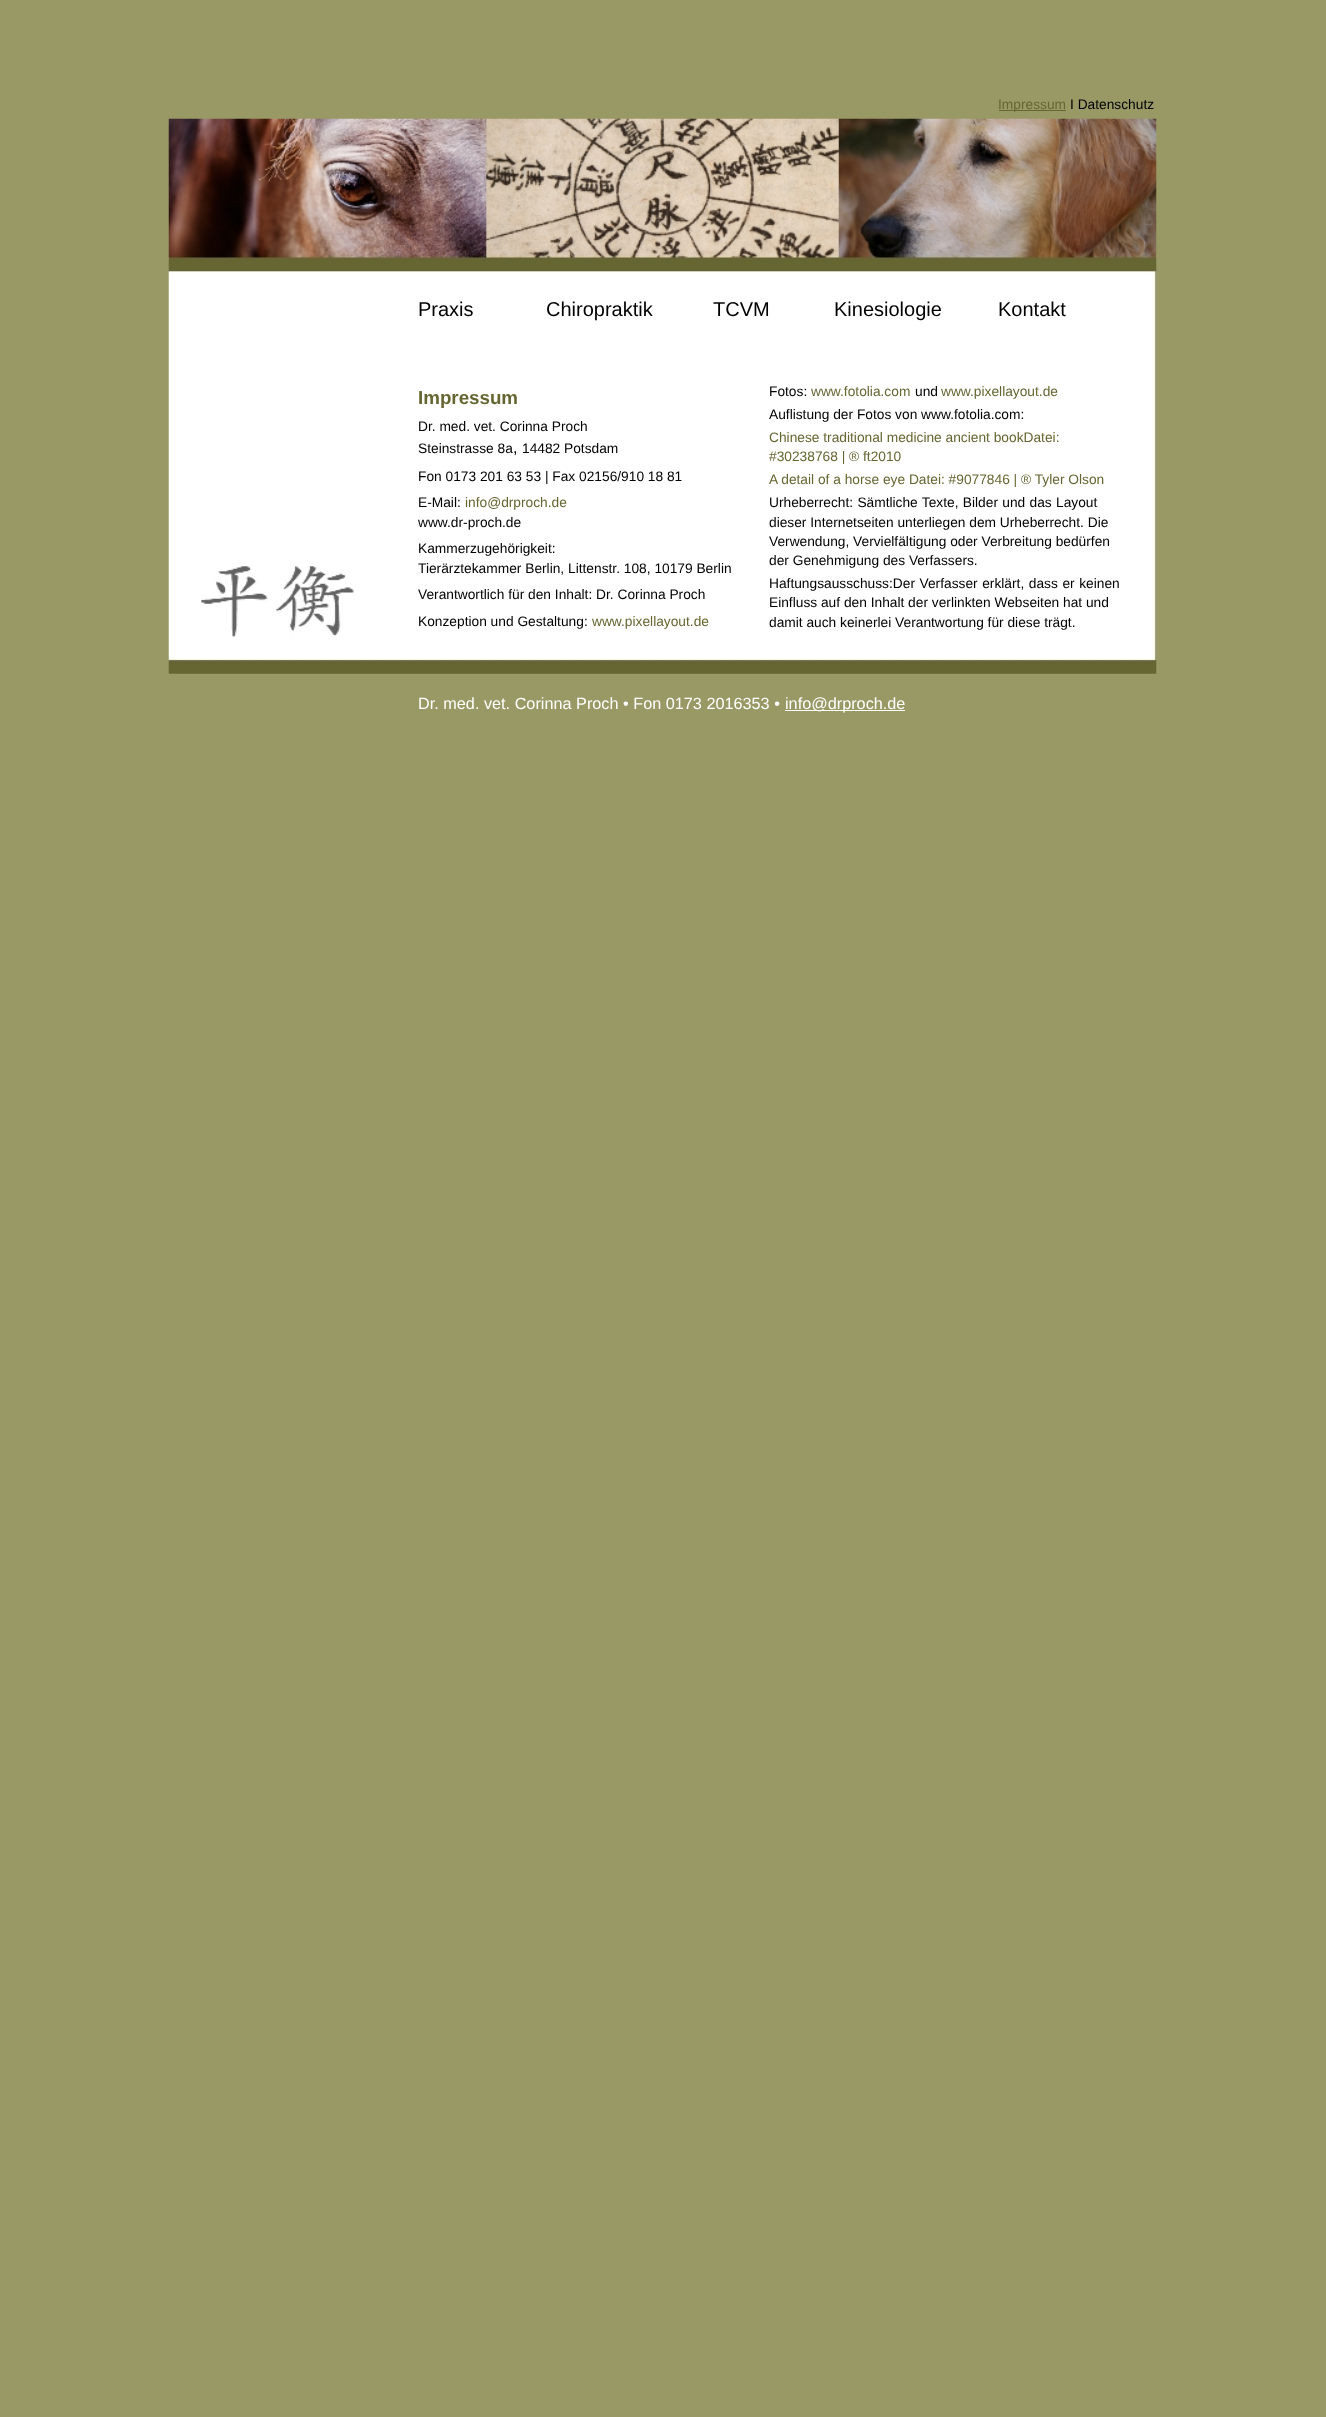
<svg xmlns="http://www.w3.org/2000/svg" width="1326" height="2417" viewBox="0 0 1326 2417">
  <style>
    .t1 { font: 13.75px Liberation Sans; fill: #663; }
    .t2 { font: 13.75px Liberation Sans; fill: #000; }
    .t3 { font: 20px Liberation Sans; fill: #000; }
    .t4 { font: bold 18.75px Liberation Sans; fill: #663; }
    .t5 { font: 16.25px Liberation Sans; fill: #000; }
    .t6 { font: 16.25px Liberation Sans; fill: #fff; }
  </style>
  <rect width="100%" height="100%" fill="#996"/>
  <rect x="999" y="110" width="67" height="1" fill="#663"/>
  <text x="998" y="109" class="t1">Impressum</text>
  <text x="1070" y="109" class="t2">I Datenschutz</text>
  <image x="168" y="118" width="989" height="556" href="images/1.png"/>
  <text x="418" y="316" class="t3">Praxis</text>
  <text x="546" y="316" class="t3">Chiropraktik</text>
  <text x="713" y="316" class="t3">TCVM</text>
  <text x="834" y="316" class="t3">Kinesiologie</text>
  <text x="998" y="316" class="t3">Kontakt</text>
  <text x="418" y="404" class="t4">Impressum</text>
  <text x="418" y="431" class="t2">Dr. med. vet. Corinna Proch</text>
  <text x="418" y="453" class="t2">Steinstrasse 8a</text>
  <text x="513" y="453" class="t5">,</text>
  <text x="522" y="453" class="t2">14482 Potsdam</text>
  <text x="418" y="481" class="t2">Fon 0173 201 63 53 | Fax 02156/910 18 81</text>
  <text x="418" y="507" class="t2">E-Mail:</text>
  <text x="465" y="507" class="t1">info@drproch.de</text>
  <text x="418" y="527" class="t2">www.dr-proch.de</text>
  <text x="418" y="553" class="t2">Kammerzugehörigkeit:</text>
  <text x="418" y="573" class="t2">Tierärztekammer Berlin, Littenstr. 108, 10179 Berlin</text>
  <text x="418" y="599" class="t2">Verantwortlich für den Inhalt: Dr. Corinna Proch</text>
  <text x="418" y="626" class="t2">Konzeption und Gestaltung:</text>
  <text x="592" y="626" class="t1">www.pixellayout.de</text>
  <text x="769" y="396" class="t2">Fotos:</text>
  <text x="811" y="396" class="t1">www.fotolia.com</text>
  <text x="915" y="396" class="t2">und</text>
  <text x="941" y="396" class="t1">www.pixellayout.de</text>
  <text x="769" y="419" class="t2">Auflistung der Fotos von www.fotolia.com:</text>
  <text x="769" y="442" class="t1">Chinese traditional medicine ancient bookDatei:</text>
  <text x="769" y="461" class="t1">#30238768 | ® ft2010</text>
  <text x="769" y="484" class="t1">A detail of a horse eye Datei: #9077846 | ® Tyler Olson</text>
  <text x="769" y="507" word-spacing="0.5" class="t2">Urheberrecht: Sämtliche Texte, Bilder und das Layout</text>
  <text x="769" y="527" class="t2">dieser Internetseiten unterliegen dem Urheberrecht. Die</text>
  <text x="769" y="546" class="t2">Verwendung, Vervielfältigung oder Verbreitung bedürfen</text>
  <text x="769" y="565" class="t2">der Genehmigung des Verfassers.</text>
  <text x="769" y="588" word-spacing="0.75" class="t2">Haftungsausschuss:Der Verfasser erklärt, dass er keinen</text>
  <text x="769" y="607" class="t2">Einfluss auf den Inhalt der verlinkten Webseiten hat und</text>
  <text x="769" y="627" class="t2">damit auch keinerlei Verantwortung für diese trägt.</text>
  <text x="418" y="709" class="t6">Dr. med. vet. Corinna Proch • Fon 0173 2016353 •</text>
  <rect x="785" y="710" width="120" height="1" fill="#fff"/>
  <text x="785" y="709" class="t6">info@drproch.de</text>
</svg>
